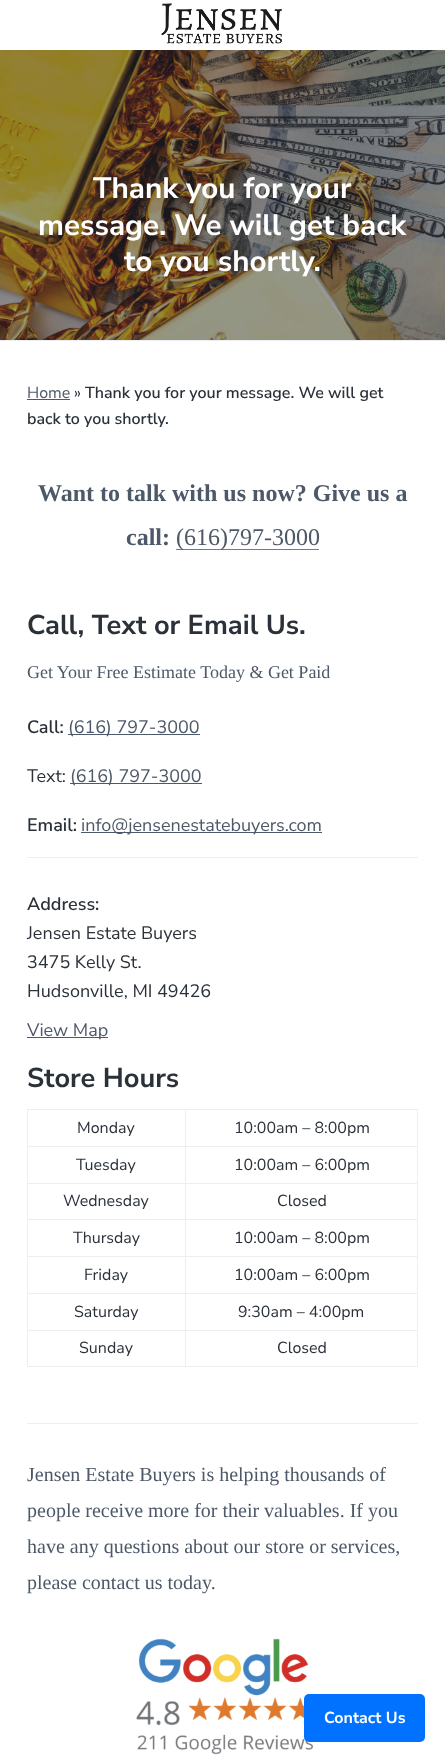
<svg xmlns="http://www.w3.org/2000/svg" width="445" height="1762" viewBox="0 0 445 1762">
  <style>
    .t1 { font: bold 29.6px Nunito Sans; fill: #fff; }
    .t2 { font: 16px Nunito Sans; fill: #4d5968; }
    .t3 { font: 16px Nunito Sans; fill: #2a3139; }
    .t4 { font: 600 16px Nunito Sans; fill: #2a3139; }
    .t5 { font: bold 24px Liberation Serif; fill: #4d5968; }
    .t6 { font: 24px Liberation Serif; fill: #4d5968; }
    .t7 { font: bold 27.25px Nunito Sans; fill: #2a3139; }
    .t8 { font: 18px Liberation Serif; fill: #4d5968; }
    .t9 { font: 600 18px Nunito Sans; fill: #2a3139; }
    .t10 { font: 18px Nunito Sans; fill: #4d5968; }
    .t11 { font: 18px Nunito Sans; fill: #2a3139; }
    .t12 { font: 20px Liberation Serif; fill: #4d5968; }
    .t13 { font: bold 16px Nunito Sans; fill: #fff; }
  </style>
  <rect width="100%" height="100%" fill="#fff"/>
  <image x="161" y="3" width="121" height="41" href="images/1.png"/>
  <image x="0" y="50" width="445" height="290" href="images/2.png"/>
  <rect x="0" y="340" width="445" height="1" fill="#eceef1"/>
  <text x="93" y="198" class="t1">Thank you for your</text>
  <text x="38" y="235" class="t1">message. We will get back</text>
  <text x="124" y="271" class="t1">to you shortly.</text>
  <text x="27" y="398" class="t2">Home</text>
  <rect x="27" y="399" width="43" height="1" fill="#4d5968"/>
  <text x="74" y="398" class="t3">»</text>
  <text x="85" y="398" class="t4">Thank you for your message. We will get</text>
  <text x="27" y="424" class="t4">back to you shortly.</text>
  <text x="38" y="501" class="t5">Want to talk with us now? Give us a</text>
  <text x="126" y="545" class="t5">call:</text>
  <rect x="176" y="549" width="143" height="1" fill="#009cff"/>
  <text x="176" y="545" class="t6">(616)797-3000</text>
  <text x="27" y="634" class="t7">Call, Text or Email Us.</text>
  <text x="27" y="678" class="t8">Get Your Free Estimate Today &amp; Get Paid</text>
  <text x="27" y="733" class="t9">Call:</text>
  <rect x="68" y="734" width="132" height="1" fill="#4d5968"/>
  <text x="68" y="733" class="t10">(616) 797-3000</text>
  <text x="27" y="782" class="t11">Text:</text>
  <rect x="70" y="783" width="132" height="1" fill="#4d5968"/>
  <text x="70" y="782" class="t10">(616) 797-3000</text>
  <text x="27" y="831" class="t9">Email:</text>
  <rect x="81" y="832" width="241" height="1" fill="#4d5968"/>
  <text x="81" y="831" class="t10">info@jensenestatebuyers.com</text>
  <rect x="27" y="857" width="391" height="1" fill="#eceef1"/>
  <text x="27" y="910" class="t9">Address:</text>
  <text x="27" y="939" class="t11">Jensen Estate Buyers</text>
  <text x="27" y="968" class="t11">3475 Kelly St.</text>
  <text x="27" y="997" class="t11">Hudsonville, MI 49426</text>
  <rect x="27" y="1037" width="81" height="1" fill="#4d5968"/>
  <text x="27" y="1036" class="t10">View Map</text>
  <text x="27" y="1087" class="t7">Store Hours</text>
  <rect x="27" y="1109" width="391" height="1" fill="#eceef1"/>
  <rect x="417" y="1109" width="1" height="258" fill="#eceef1"/>
  <rect x="27" y="1366" width="391" height="1" fill="#eceef1"/>
  <rect x="27" y="1109" width="1" height="258" fill="#eceef1"/>
  <text x="77" y="1133" class="t3">Monday</text>
  <text x="234" y="1133" class="t3">10:00am – 8:00pm</text>
  <rect x="27" y="1146" width="391" height="1" fill="#eceef1"/>
  <rect x="27" y="1183" width="391" height="1" fill="#eceef1"/>
  <rect x="27" y="1219" width="391" height="1" fill="#eceef1"/>
  <rect x="27" y="1256" width="391" height="1" fill="#eceef1"/>
  <rect x="27" y="1293" width="391" height="1" fill="#eceef1"/>
  <rect x="27" y="1330" width="391" height="1" fill="#eceef1"/>
  <rect x="185" y="1330" width="1" height="37" fill="#eceef1"/>
  <rect x="185" y="1293" width="1" height="38" fill="#eceef1"/>
  <rect x="185" y="1256" width="1" height="38" fill="#eceef1"/>
  <rect x="185" y="1219" width="1" height="38" fill="#eceef1"/>
  <rect x="185" y="1183" width="1" height="37" fill="#eceef1"/>
  <rect x="185" y="1109" width="1" height="75" fill="#eceef1"/>
  <text x="76" y="1170" class="t3">Tuesday</text>
  <text x="234" y="1170" class="t3">10:00am – 6:00pm</text>
  <text x="63" y="1206" class="t3">Wednesday</text>
  <text x="277" y="1206" class="t3">Closed</text>
  <text x="73" y="1243" class="t3">Thursday</text>
  <text x="234" y="1243" class="t3">10:00am – 8:00pm</text>
  <text x="84" y="1280" class="t3">Friday</text>
  <text x="234" y="1280" class="t3">10:00am – 6:00pm</text>
  <text x="74" y="1317" class="t3">Saturday</text>
  <text x="238" y="1317" class="t3">9:30am – 4:00pm</text>
  <text x="79" y="1353" class="t3">Sunday</text>
  <text x="277" y="1353" class="t3">Closed</text>
  <rect x="27" y="1423" width="391" height="1" fill="#eceef1"/>
  <text x="27" y="1481" class="t12">Jensen Estate Buyers is helping thousands of</text>
  <text x="27" y="1517" class="t12">people receive more for their valuables. If you</text>
  <text x="27" y="1553" class="t12">have any questions about our store or services,</text>
  <text x="27" y="1589" class="t12">please contact us today.</text>
  <image x="136" y="1638" width="178" height="117" href="images/3.png"/>
  <rect x="304" y="1694" width="121" height="48" rx="5" fill="#0072ff"/>
  <text x="324" y="1723" class="t13">Contact Us</text>
</svg>
